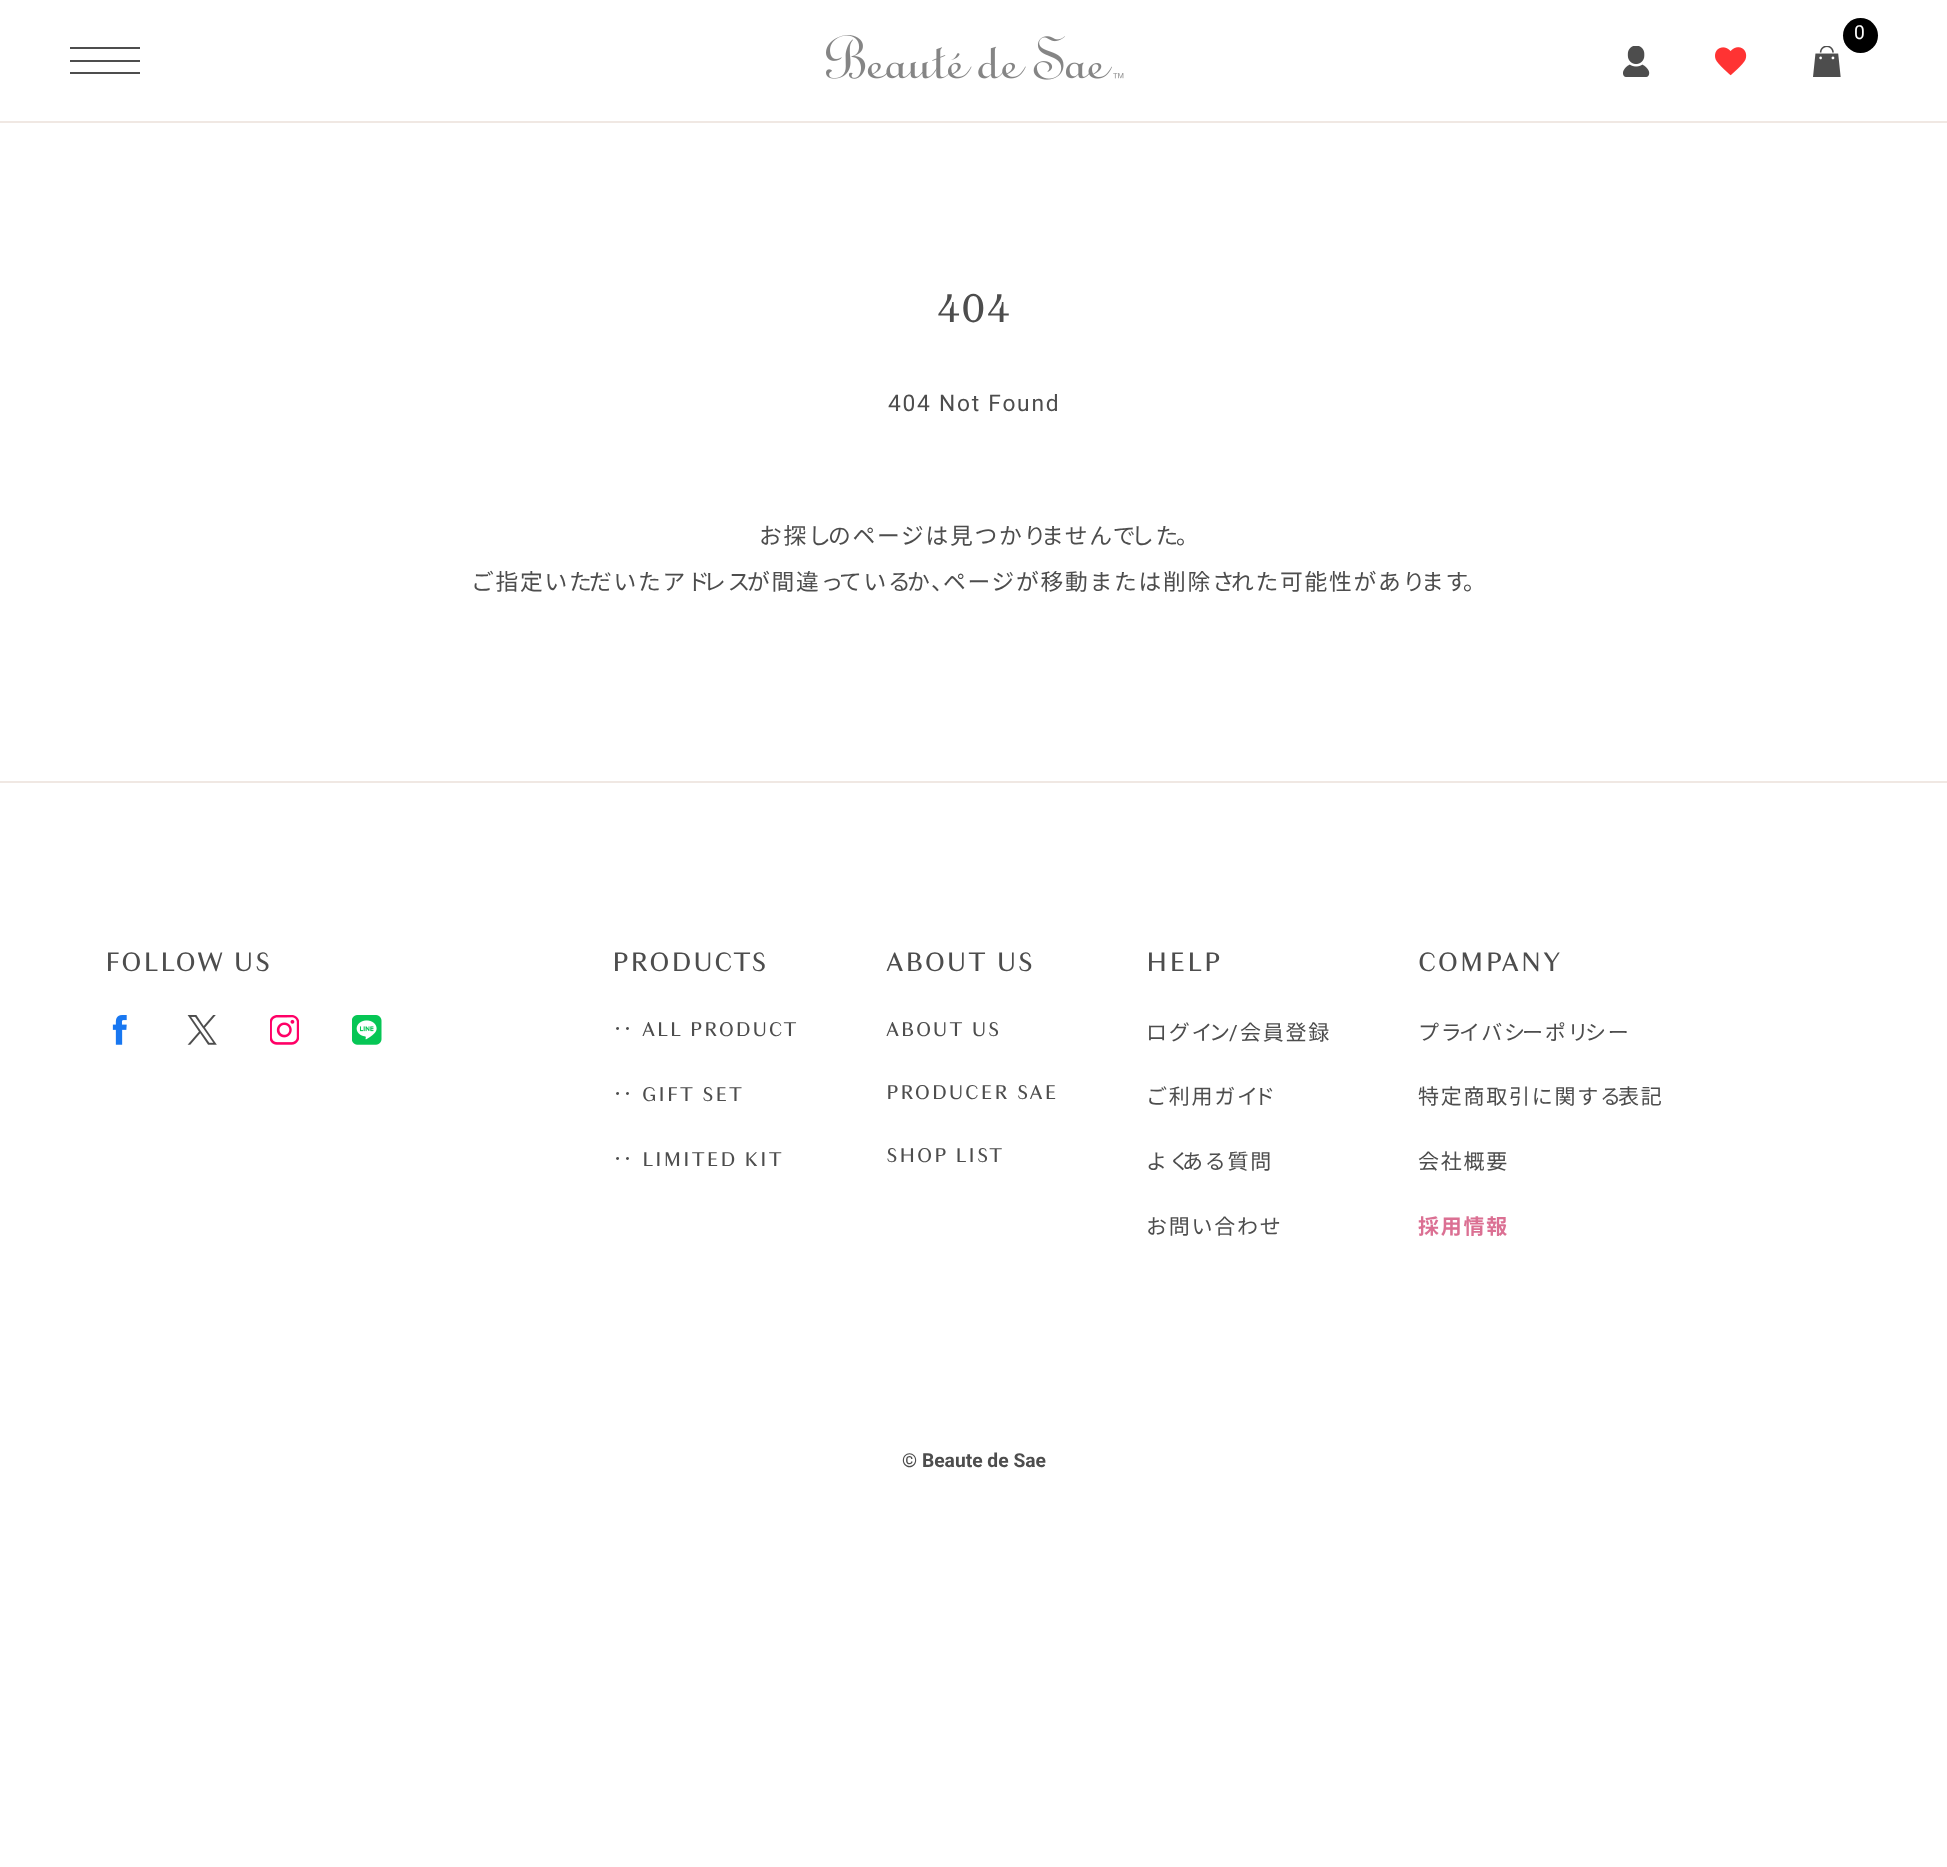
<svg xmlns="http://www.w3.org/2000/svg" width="1947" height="1867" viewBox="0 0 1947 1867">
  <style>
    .t1 { font: 19.25px Roboto; letter-spacing: 1.75px; fill: #fff; }
    .t2 { font: 42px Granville; letter-spacing: 1.75px; fill: #4d4d4d; }
    .t3 { font: 22.75px Roboto; letter-spacing: 1.75px; fill: #4d4d4d; }
    .t4 { font: 22.75px Noto Sans JP; letter-spacing: 1.75px; fill: #4d4d4d; }
    .t5 { font: 28px Granville; letter-spacing: 1.75px; fill: #4d4d4d; }
    .t6 { font: 500 21px WenQuanYi Zen Hei; letter-spacing: 1.75px; fill: #4d4d4d; }
    .t7 { font: 21px Granville; letter-spacing: 1.75px; fill: #4d4d4d; }
    .t8 { font: 21px Noto Sans JP; letter-spacing: 1.75px; fill: #4d4d4d; }
    .t9 { font: 21px Roboto; letter-spacing: 1.75px; fill: #4d4d4d; }
    .t10 { font: bold 21px Noto Sans JP; letter-spacing: 1.75px; fill: #db7093; }
    .t11 { font: bold 19.25px Roboto; fill: #4d4d4d; }
  </style>
  <rect width="100%" height="100%" fill="#fff"/>
  <rect x="0" y="121" width="1947" height="2" fill="#f0e8e3"/>
  <circle cx="1860.5" cy="35.5" r="17.5" fill="#000"/>
  <text x="1854" y="39" class="t1">0</text>
  <image x="1813" y="46" width="28" height="31" href="images/1.png"/>
  <image x="1623" y="46" width="27" height="31" href="images/2.png"/>
  <image x="1715" y="47" width="32" height="29" href="images/3.png"/>
  <rect x="70" y="47" width="70" height="2" fill="#4d4d4d"/>
  <rect x="70" y="60" width="70" height="2" fill="#4d4d4d"/>
  <rect x="70" y="72" width="70" height="2" fill="#4d4d4d"/>
  <image x="826" y="35" width="298" height="45" href="images/4.png"/>
  <text x="937" y="322" class="t2">404</text>
  <text x="888" y="411" class="t3">404 Not Found</text>
  <text x="759" y="544" class="t4">お探し</text>
  <text x="828" y="544" class="t4">のページは見つかり</text>
  <text x="1041" y="544" class="t4">ませんで</text>
  <text x="1131" y="544" class="t4">した</text>
  <text x="1176" y="544" class="t4">。</text>
  <text x="471" y="590" class="t4">ご指定いた</text>
  <text x="589" y="590" class="t4">だいたアド</text>
  <text x="703" y="590" class="t4">レス</text>
  <text x="747" y="590" class="t4">が間違っ</text>
  <text x="839" y="590" class="t4">ている</text>
  <text x="907" y="590" class="t4">か、</text>
  <text x="943" y="590" class="t4">ページが移動または削除さ</text>
  <text x="1231" y="590" class="t4">れた可能性があり</text>
  <text x="1421" y="590" class="t4">ます</text>
  <text x="1463" y="590" class="t4">。</text>
  <rect x="0" y="781" width="1947" height="2" fill="#f0e8e3"/>
  <text x="105" y="971" class="t5">FOLLOW US</text>
  <image x="112" y="1015" width="15" height="30" href="images/5.png"/>
  <image x="187" y="1015" width="30" height="30" href="images/6.png"/>
  <image x="270" y="1015" width="29" height="30" href="images/7.png"/>
  <image x="352" y="1015" width="30" height="30" href="images/8.png"/>
  <text x="612" y="971" class="t5">PRODUCTS</text>
  <text x="612" y="1036" class="t6">‥</text>
  <text x="642" y="1036" class="t7">ALL PRODUCT</text>
  <text x="612" y="1101" class="t6">‥</text>
  <text x="642" y="1101" class="t7">GIFT SET</text>
  <text x="612" y="1166" class="t6">‥</text>
  <text x="642" y="1166" class="t7">LIMITED KIT</text>
  <text x="886" y="971" class="t5">ABOUT US</text>
  <text x="886" y="1036" class="t7">ABOUT US</text>
  <text x="886" y="1099" class="t7">PRODUCER SAE</text>
  <text x="886" y="1162" class="t7">SHOP LIST</text>
  <text x="1146" y="971" class="t5">HELP</text>
  <text x="1146" y="1040" class="t8">ログイ</text>
  <text x="1209" y="1040" class="t8">ン</text>
  <text x="1229" y="1040" class="t9">/</text>
  <text x="1240" y="1040" class="t8">会員登録</text>
  <text x="1146" y="1104" class="t8">ご利用ガイ</text>
  <text x="1254" y="1104" class="t8">ド</text>
  <text x="1146" y="1169" class="t8">よく</text>
  <text x="1182" y="1169" class="t8">ある質問</text>
  <text x="1146" y="1234" class="t8">お問い合わせ</text>
  <text x="1418" y="971" class="t5">COMPANY</text>
  <text x="1418" y="1040" class="t8">プラ</text>
  <text x="1459" y="1040" class="t8">イバシ</text>
  <text x="1522" y="1040" class="t8">ーポリ</text>
  <text x="1585" y="1040" class="t8">シー</text>
  <text x="1418" y="1104" class="t8">特定商取引に関する</text>
  <text x="1618" y="1104" class="t8">表記</text>
  <text x="1418" y="1169" class="t8">会社概要</text>
  <text x="1418" y="1234" class="t10">採用情報</text>
  <text x="902" y="1467" class="t11">© Beaute de Sae</text>
</svg>
